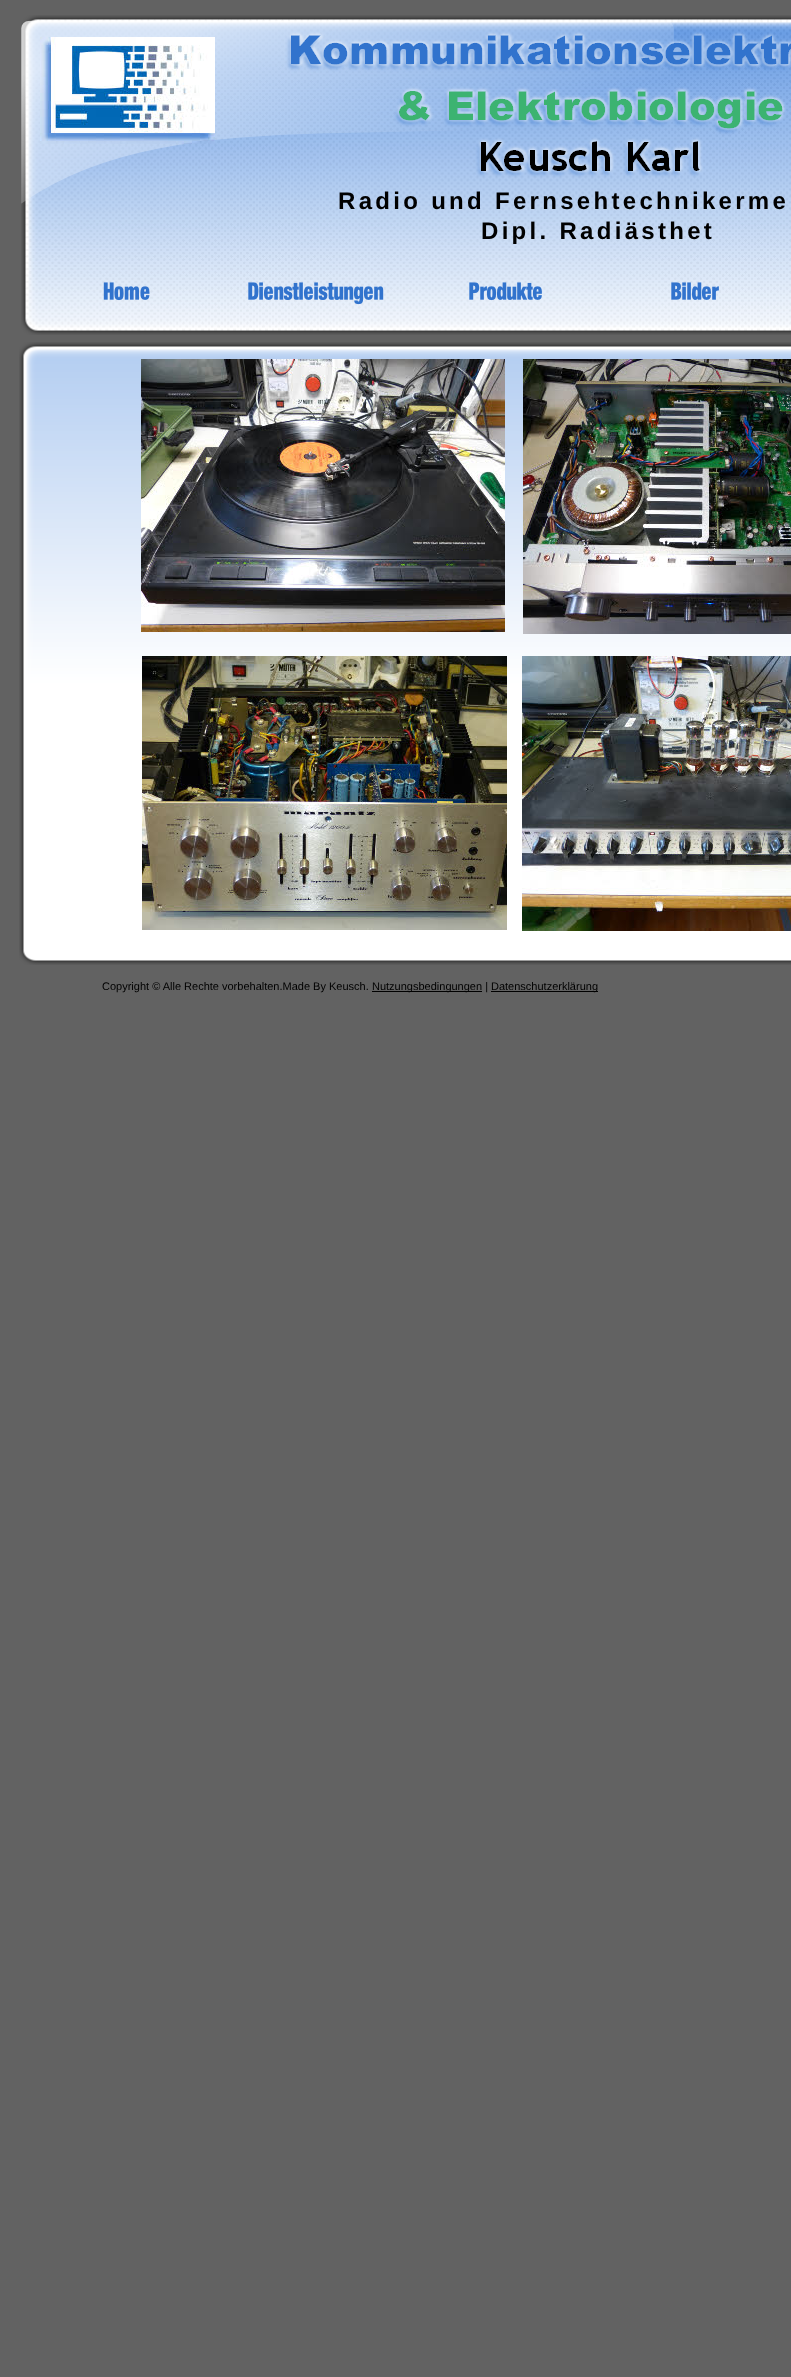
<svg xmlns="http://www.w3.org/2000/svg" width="791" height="2377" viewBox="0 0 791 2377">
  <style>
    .t1 { font: bold 24px Liberation Sans; letter-spacing: 3.3px; fill: #000; }
    .t2 { font: 11px Liberation Sans; fill: #000; }
  </style>
  <rect width="100%" height="100%" fill="#626262"/>
  <image x="21" y="15" width="770" height="320" href="images/1.png"/>
  <image x="40" y="37" width="175" height="107" href="images/2.png"/>
  <text x="338" y="209" class="t1">Radio und Fernsehtechnikerme</text>
  <text x="481" y="239" class="t1">Dipl. Radiästhet</text>
  <image x="103" y="282" width="47" height="19" href="images/3.png"/>
  <image x="248" y="282" width="136" height="23" href="images/4.png"/>
  <image x="469" y="282" width="73" height="19" href="images/5.png"/>
  <image x="671" y="282" width="48" height="18" href="images/6.png"/>
  <image x="19" y="342" width="772" height="623" href="images/7.png"/>
  <image x="141" y="359" width="364" height="273" href="images/8.png"/>
  <image x="523" y="359" width="268" height="275" href="images/9.png"/>
  <image x="142" y="656" width="365" height="274" href="images/10.png"/>
  <image x="522" y="656" width="269" height="275" href="images/11.png"/>
  <text x="102" y="990" class="t2">Copyright © Alle Rechte vorbehalten.Made By Keusch.</text>
  <rect x="372" y="991" width="110" height="1" fill="#000"/>
  <text x="372" y="990" class="t2">Nutzungsbedingungen |</text>
  <rect x="491" y="991" width="107" height="1" fill="#000"/>
  <text x="491" y="990" class="t2">Datenschutzerklärung</text>
</svg>
